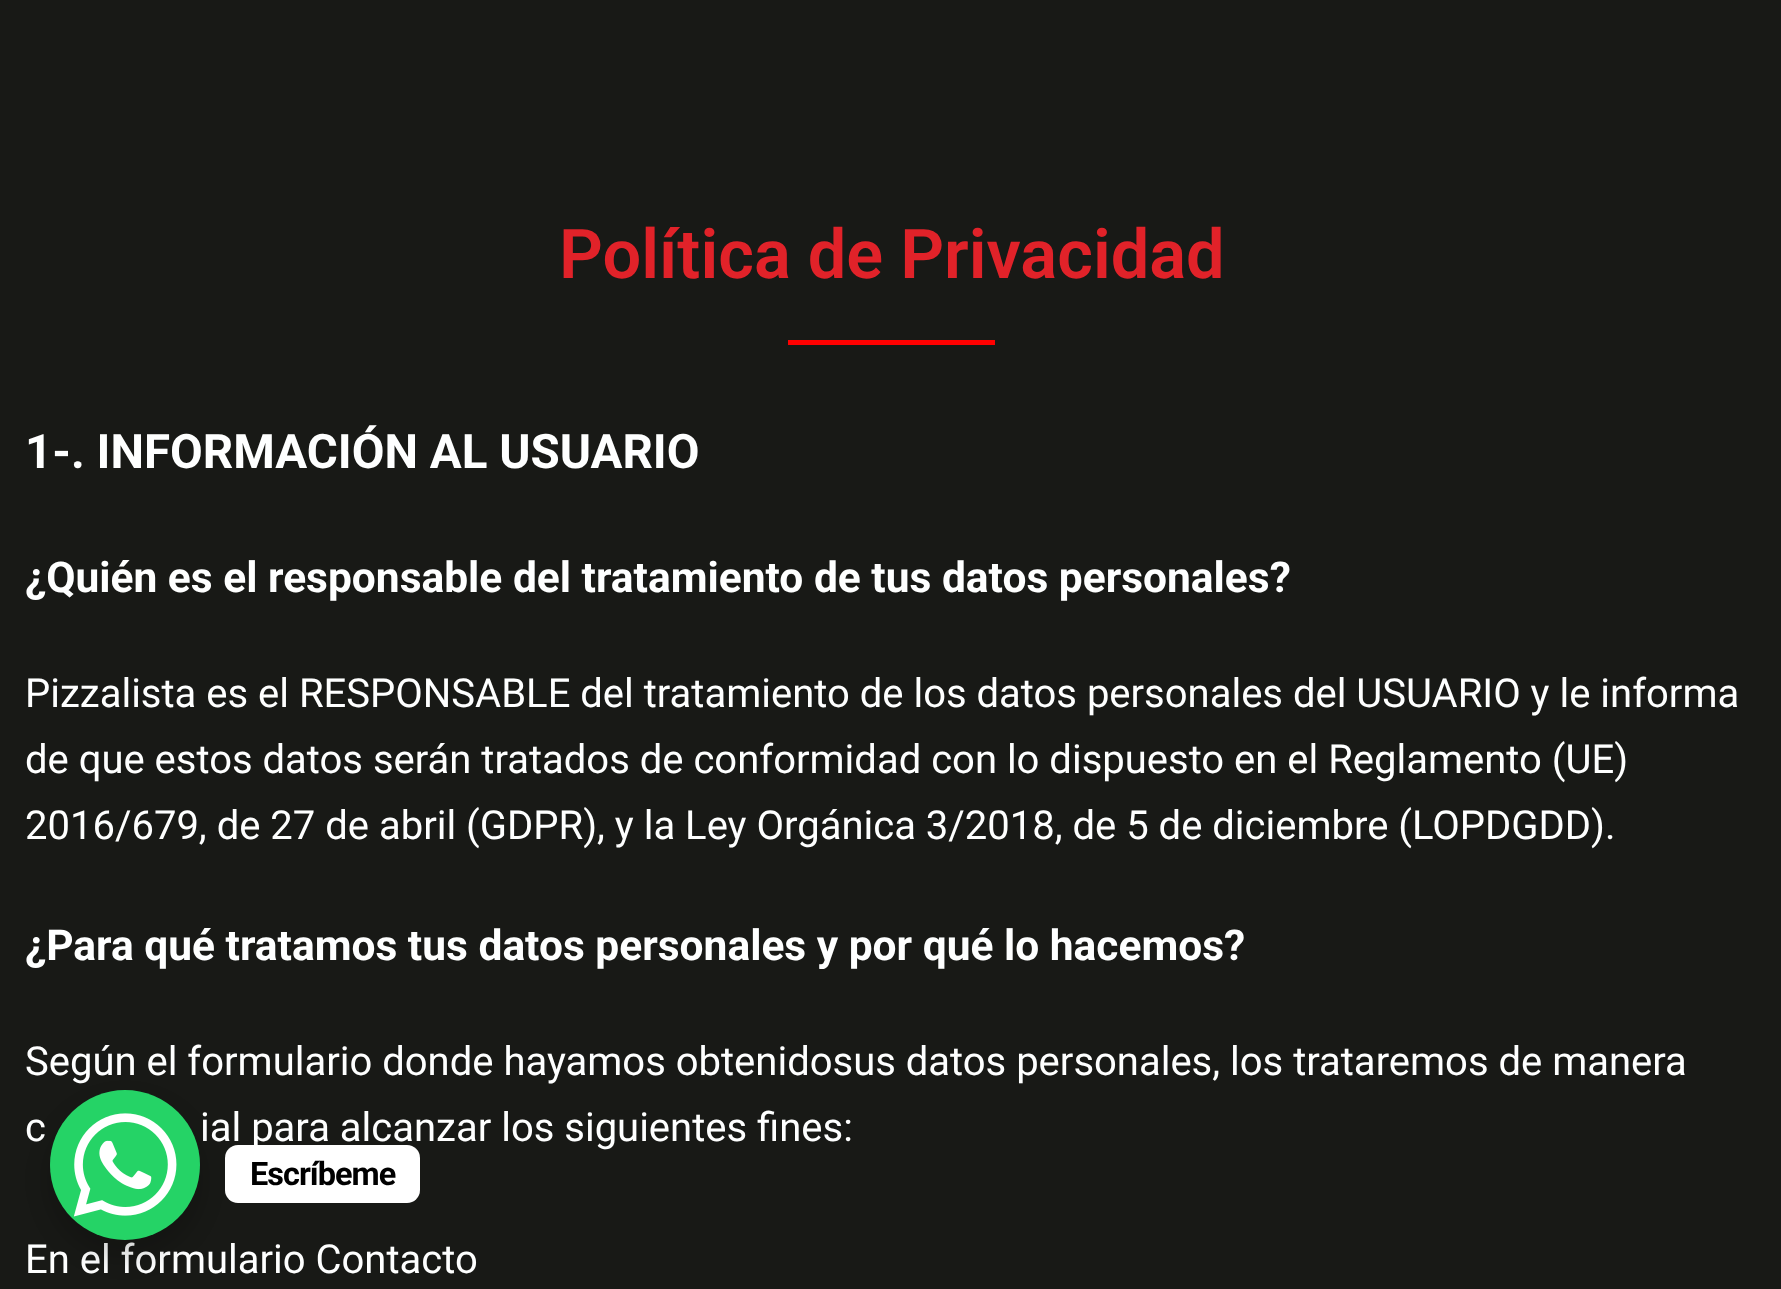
<svg xmlns="http://www.w3.org/2000/svg" width="1781" height="1289" viewBox="0 0 1781 1289">
  <style>
    .t1 { font: 600 68.5px Roboto; fill: #e12229; }
    .t2 { font: bold 47.5px Roboto; fill: #feffff; }
    .t3 { font: bold 42.5px Roboto; fill: #feffff; }
    .t4 { font: 40px Roboto; fill: #feffff; }
    .t5 { font: bold 32.5px Roboto; letter-spacing: -1px; fill: #000; }
  </style>
  <rect width="100%" height="100%" fill="#181916"/>
  <text x="559" y="278" class="t1">Política de Privacidad</text>
  <rect x="788" y="340" width="207" height="5" fill="#f00"/>
  <text x="25" y="468" class="t2">1-. INFORMACIÓN AL USUARIO</text>
  <text x="25" y="592" class="t3">¿Quién es el responsable del tratamiento de tus datos personales?</text>
  <text x="25" y="707" class="t4">Pizzalista es el RESPONSABLE del tratamiento de los datos personales del USUARIO y le informa</text>
  <text x="25" y="773" class="t4">de que estos datos serán tratados de conformidad con lo dispuesto en el Reglamento (UE)</text>
  <text x="25" y="839" class="t4">2016/679, de 27 de abril (GDPR), y la Ley Orgánica 3/2018, de 5 de diciembre (LOPDGDD).</text>
  <text x="25" y="960" class="t3">¿Para qué tratamos tus datos personales y por qué lo hacemos?</text>
  <text x="25" y="1075" class="t4">Según el formulario donde hayamos obtenidosus datos personales, los trataremos de manera</text>
  <text x="25" y="1141" class="t4">c</text>
  <text x="200" y="1141" class="t4">ial para alcanzar los siguientes fines:</text>
  <text x="25" y="1273" class="t4">En el formulario Contacto</text>
  <rect x="45" y="1100" width="160" height="160" rx="80" fill="#00000026" filter="blur(10px)"/>
  <circle cx="125" cy="1165" r="75" fill="#25d366"/>
  <image x="73" y="1113" width="104" height="104" href="images/1.png"/>
  <rect x="225" y="1145" width="195" height="58" rx="13" fill="#fff"/>
  <text x="250" y="1185" class="t5">Escríbeme</text>
</svg>
